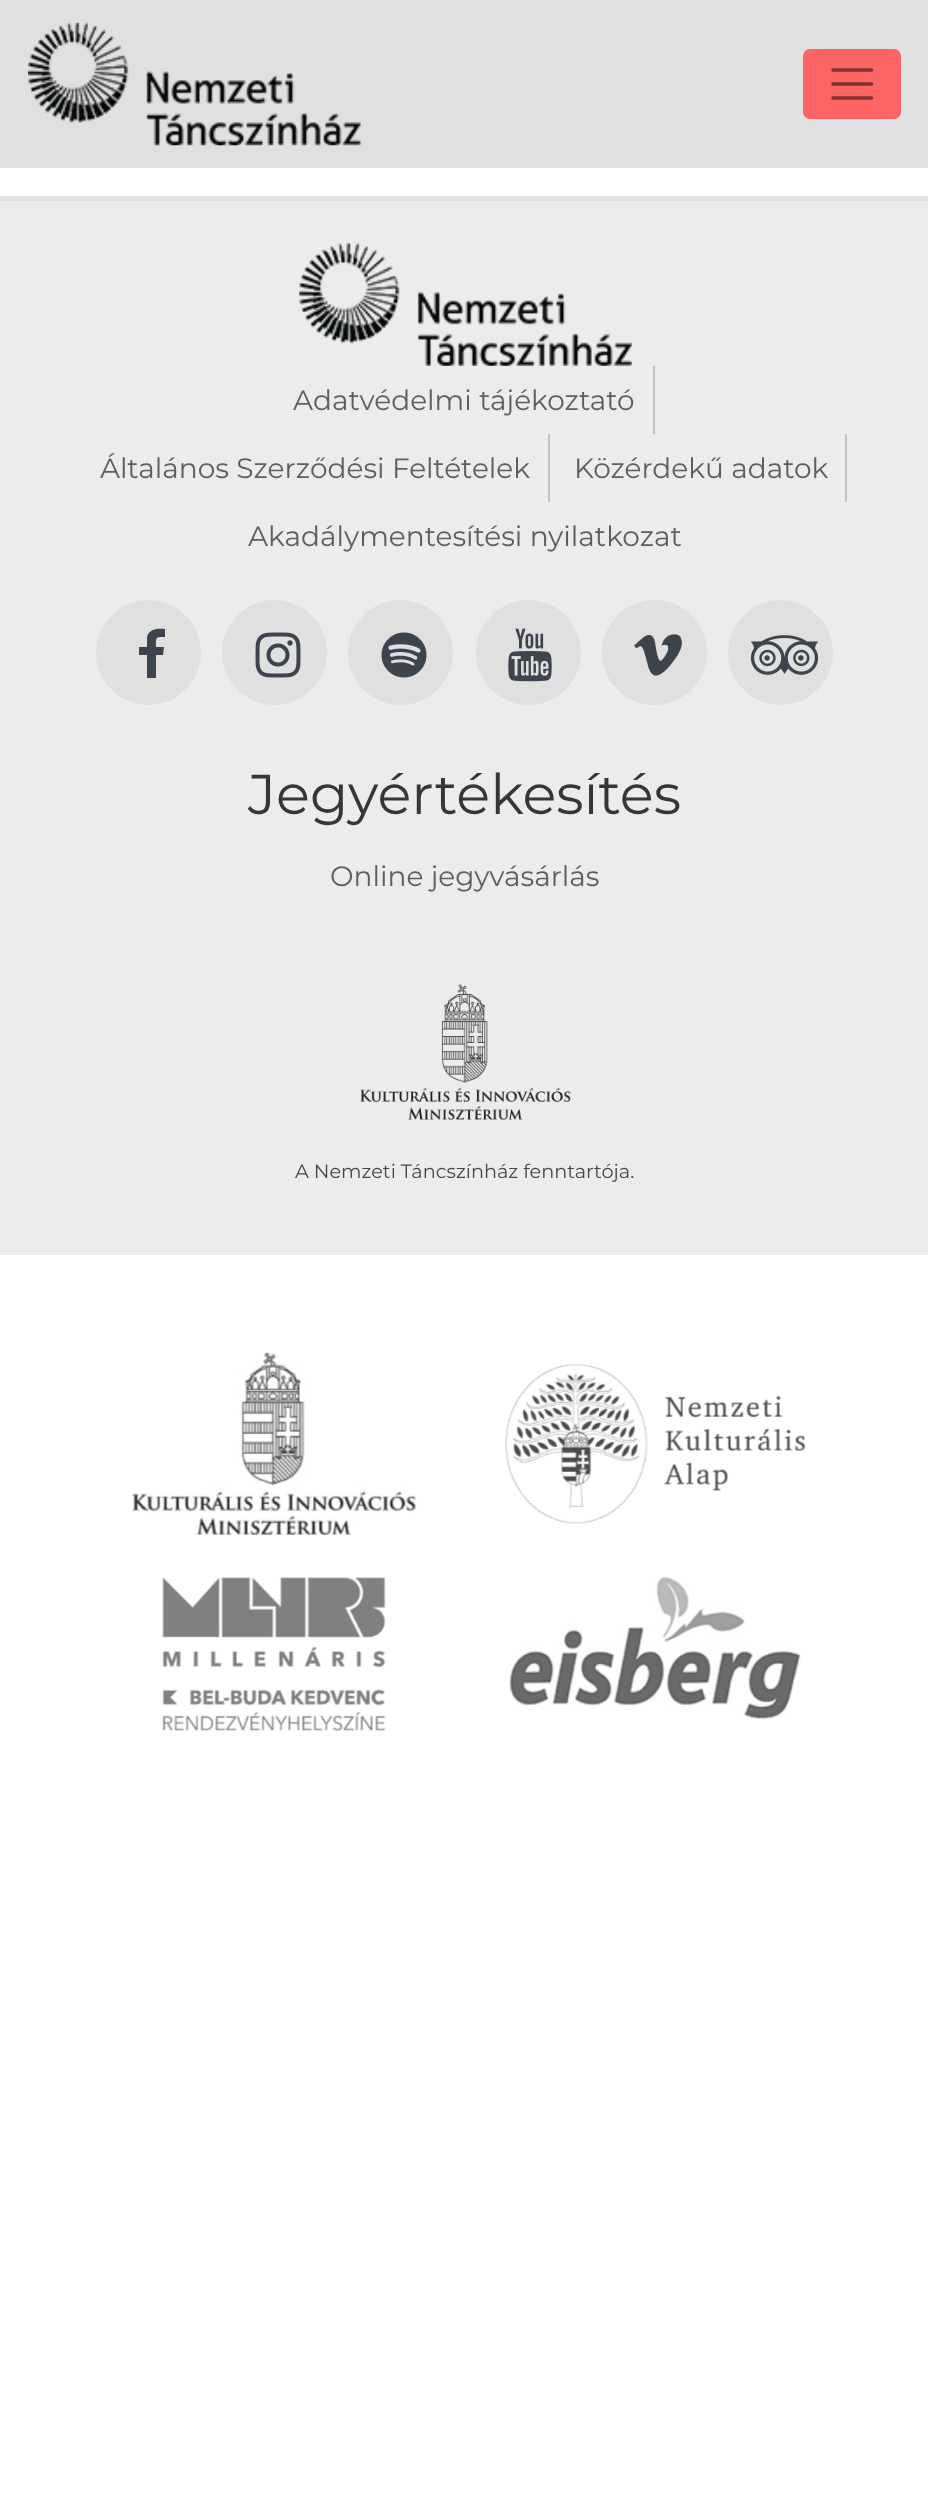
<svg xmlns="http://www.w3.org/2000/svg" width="928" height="2504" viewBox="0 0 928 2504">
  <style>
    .t1 { font: 100 28px Montserrat; fill: #625d5d; }
    .t2 { font: 100 56px Montserrat; fill: #363636; }
    .t3 { font: 100 19.25px Montserrat; fill: #464646; }
  </style>
  <rect width="100%" height="100%" fill="#fff"/>
  <rect x="0" y="0" width="928" height="168" fill="#e0e0e0"/>
  <image x="28" y="22" width="333" height="124" href="images/1.png"/>
  <rect x="803" y="49" width="98" height="70" rx="7" fill="#ff6464"/>
  <path d="M833 70H871.5M833 84H871.5M833 98H871.5" fill="none" stroke="#803232" stroke-width="3.5" stroke-linecap="round"/>
  <rect x="0" y="201" width="928" height="1054" fill="#ececec"/>
  <rect x="0" y="196" width="928" height="5" fill="#e0e0e0"/>
  <image x="299" y="243" width="333" height="123" href="images/2.png"/>
  <rect x="653" y="366" width="2" height="68" fill="#c3c3c3"/>
  <text x="293" y="410" class="t1">Adatvédelmi tájékoztató</text>
  <rect x="548" y="434" width="2" height="68" fill="#c3c3c3"/>
  <text x="100" y="478" class="t1">Általános Szerződési Feltételek</text>
  <rect x="845" y="434" width="2" height="68" fill="#c3c3c3"/>
  <text x="574" y="478" class="t1">Közérdekű adatok</text>
  <text x="248" y="546" class="t1">Akadálymentesítési nyilatkozat</text>
  <circle cx="148.5" cy="652.5" r="52.5" fill="#e0e0e0"/>
  <path d="M165 629V637C155 637 156 637 156 647H164L163 655H156V678H147V655H139V647H147V638C148 629 157 628 165 629Z" fill="#3e444d"/>
  <circle cx="274.5" cy="652.5" r="52.5" fill="#e0e0e0"/>
  <image x="255" y="632" width="46" height="46" href="images/3.png"/>
  <circle cx="400.5" cy="652.5" r="52.5" fill="#e0e0e0"/>
  <image x="381" y="632" width="46" height="46" href="images/4.png"/>
  <circle cx="528.5" cy="652.5" r="52.5" fill="#e0e0e0"/>
  <image x="508" y="628" width="44" height="54" href="images/5.png"/>
  <circle cx="654.5" cy="652.5" r="52.5" fill="#e0e0e0"/>
  <image x="634" y="634" width="48" height="42" href="images/6.png"/>
  <circle cx="780.5" cy="652.5" r="52.5" fill="#e0e0e0"/>
  <image x="750" y="635" width="69" height="40" href="images/7.png"/>
  <text x="248" y="814" class="t2">Jegyértékesítés</text>
  <text x="330" y="886" class="t1">Online jegyvásárlás</text>
  <image x="360" y="984" width="211" height="136" href="images/8.png"/>
  <text x="295" y="1178" class="t3">A Nemzeti Táncszínház fenntartója.</text>
  <image x="132" y="1352" width="285" height="183" href="images/9.png"/>
  <image x="505" y="1363" width="301" height="161" href="images/10.png"/>
  <image x="162" y="1577" width="224" height="154" href="images/11.png"/>
  <image x="509" y="1576" width="292" height="144" href="images/12.png"/>
</svg>
